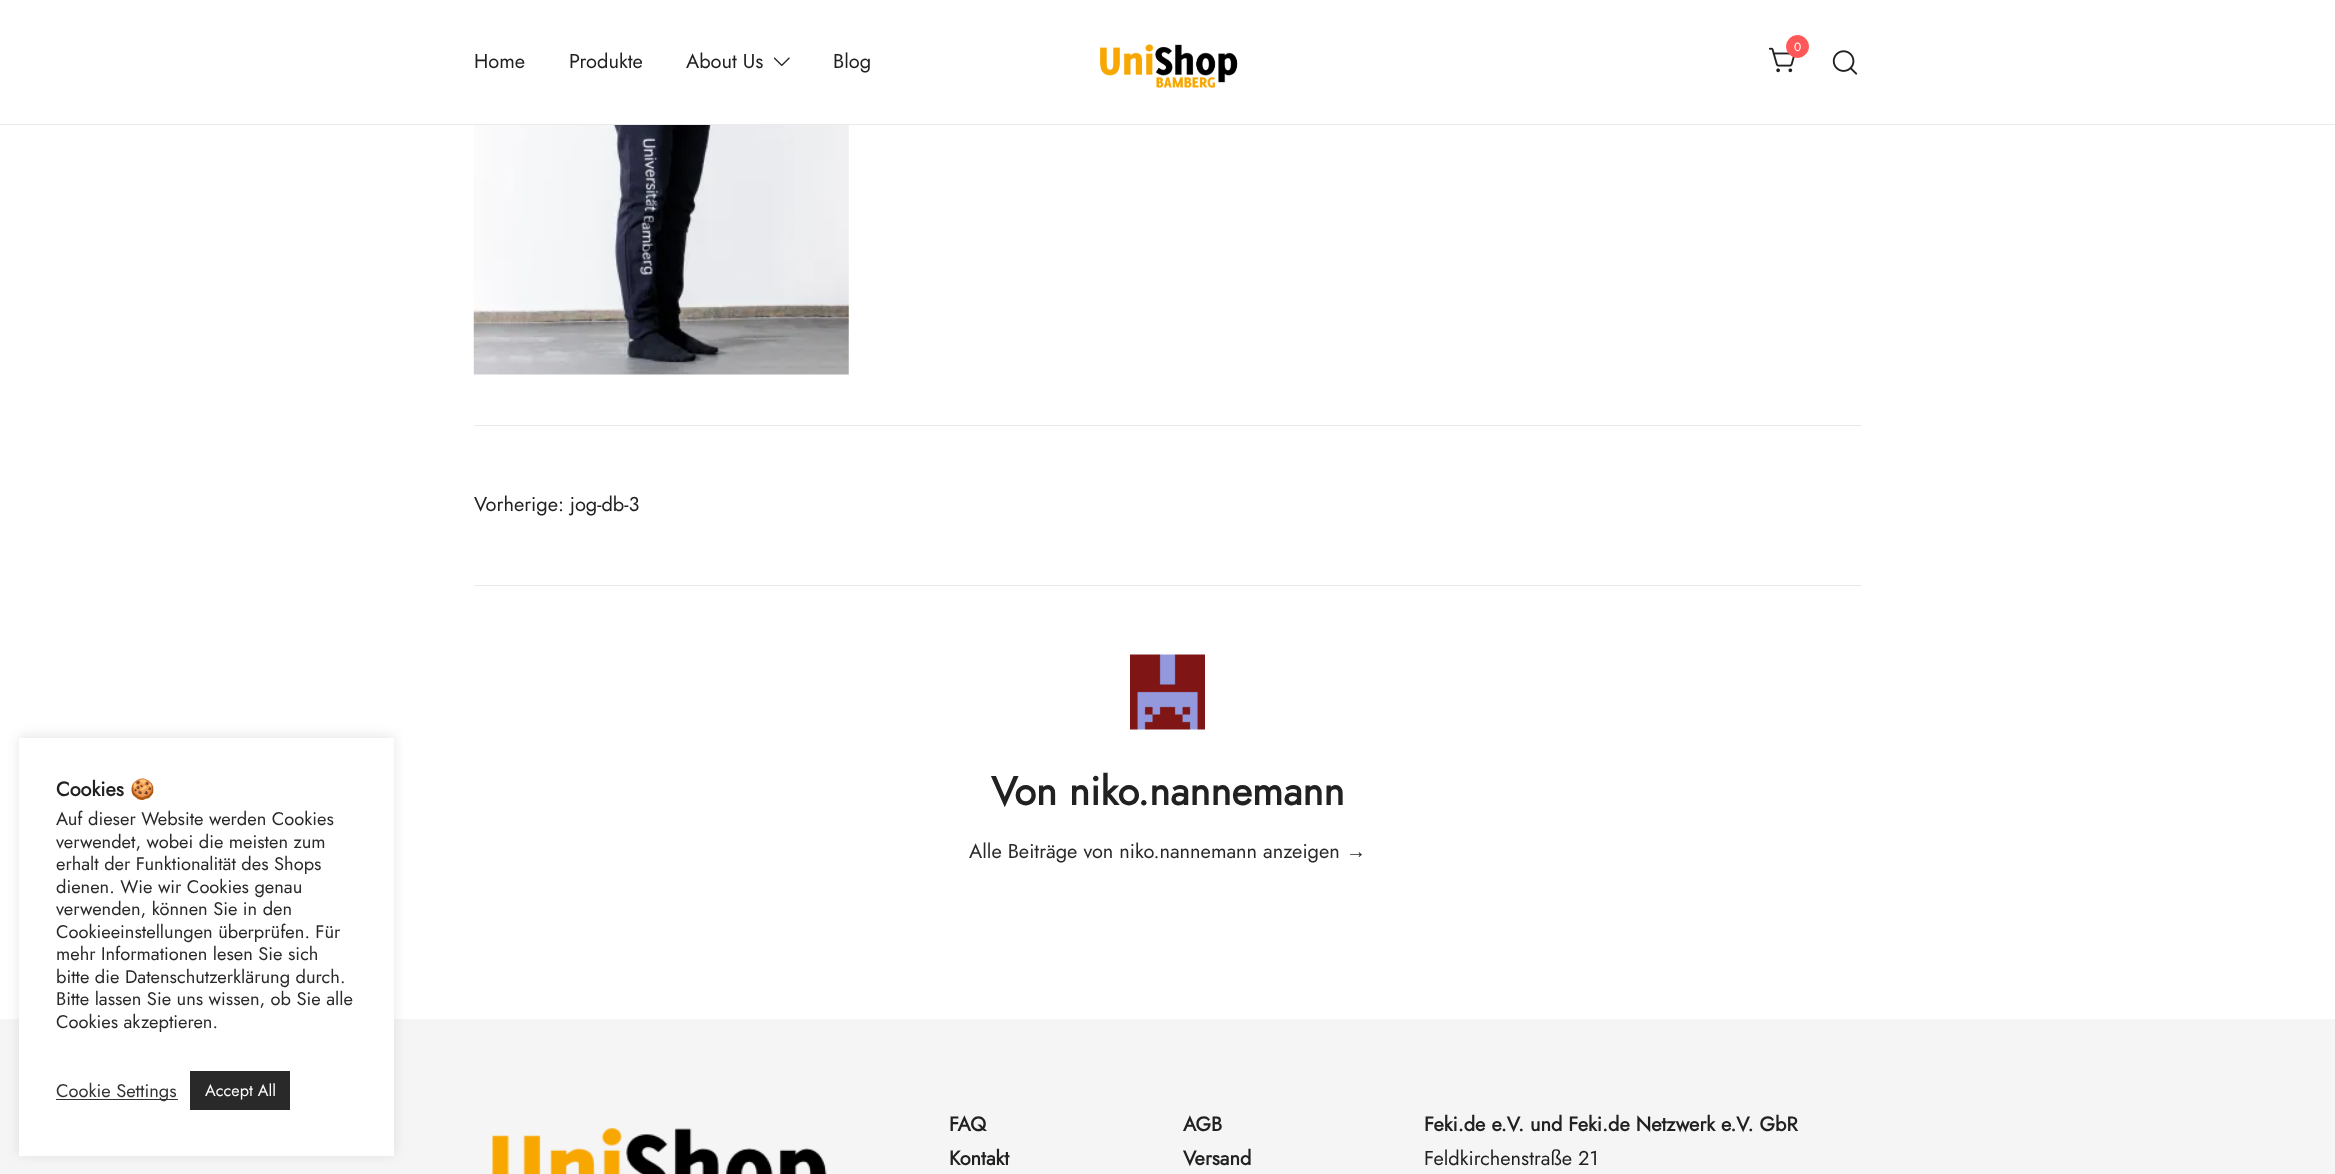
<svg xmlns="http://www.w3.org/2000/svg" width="2335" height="1174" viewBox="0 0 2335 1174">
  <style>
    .t1 { font: bold 20px Jost; fill: #212121; }
    .t2 { font: bold 20px Noto Color Emoji; fill: #212121; }
    .t3 { font: 18.3px Jost; fill: #292929; }
    .t4 { font: 18.3px Jost; fill: #333; }
    .t5 { font: 16.25px Jost; fill: #fff; }
    .t6 { font: 20px Jost; fill: #212121; }
    .t7 { font: 12px Jost; fill: #fff; }
    .t8 { font: bold 40px Jost; fill: #212121; }
    .t9 { font: 20px Jost; fill: #292929; }
    .t10 { font: 20px Liberation Sans; fill: #292929; }
  </style>
  <rect width="100%" height="100%" fill="#fff"/>
  <rect x="0" y="1019" width="2335" height="155" fill="#f5f5f5"/>
  <rect x="19" y="736" width="375" height="419" fill="#acabab4d" filter="blur(6px)"/>
  <rect x="19" y="738" width="375" height="418" fill="#fff"/>
  <text x="56" y="796" class="t1">Cookies</text>
  <text x="130" y="796" class="t2">🍪</text>
  <text x="56" y="825" class="t3">Auf dieser Website werden Cookies</text>
  <text x="56" y="848" class="t3">verwendet, wobei die meisten zum</text>
  <text x="56" y="870" class="t3">erhalt der Funktionalität des Shops</text>
  <text x="56" y="893" class="t3">dienen. Wie wir Cookies genau</text>
  <text x="56" y="915" class="t3">verwenden, können Sie in den</text>
  <text x="56" y="938" class="t3">Cookieeinstellungen überprüfen. Für</text>
  <text x="56" y="960" class="t3">mehr Informationen lesen Sie sich</text>
  <text x="56" y="983" class="t3">bitte die Datenschutzerklärung durch.</text>
  <text x="56" y="1005" class="t3">Bitte lassen Sie uns wissen, ob Sie alle</text>
  <text x="56" y="1028" class="t3">Cookies akzeptieren.</text>
  <rect x="56" y="1099" width="122" height="1" fill="#333"/>
  <text x="56" y="1097" class="t4">Cookie Settings</text>
  <rect x="190" y="1071" width="100" height="39" fill="#292929"/>
  <text x="205" y="1096" class="t5">Accept All</text>
  <rect x="0" y="124" width="2335" height="1" fill="#eaeaea"/>
  <text x="474" y="68" class="t6">Home</text>
  <text x="569" y="68" class="t6">Produkte</text>
  <text x="686" y="68" class="t6">About Us</text>
  <image x="774" y="57" width="16" height="9" href="images/1.png"/>
  <text x="833" y="68" class="t6">Blog</text>
  <image x="1100" y="44" width="138" height="44" href="images/2.png"/>
  <image x="1769" y="47" width="26" height="26" href="images/3.png"/>
  <circle cx="1797.5" cy="46.5" r="11" fill="#ff5858" stroke="#ff5858"/>
  <text x="1794" y="51" class="t7">0</text>
  <image x="1832" y="50" width="26" height="25" href="images/4.png"/>
  <image x="473" y="125" width="376" height="250" href="images/5.png"/>
  <rect x="474" y="425" width="1387" height="1" fill="#e9e9e9"/>
  <text x="474" y="511" class="t6">Vorherige: jog-db-3</text>
  <rect x="474" y="585" width="1387" height="1" fill="#e9e9e9"/>
  <image x="1130" y="654" width="75" height="76" href="images/6.png"/>
  <text x="991" y="805" class="t8">Von niko.nannemann</text>
  <text x="969" y="858" class="t9">Alle Beiträge von niko.nannemann anzeigen</text>
  <text x="1346" y="858" class="t10">→</text>
  <image x="492" y="1128" width="335" height="46" href="images/7.png"/>
  <text x="949" y="1131" class="t1">FAQ</text>
  <text x="949" y="1165" class="t1">Kontakt</text>
  <text x="1183" y="1131" class="t1">AGB</text>
  <text x="1183" y="1165" class="t1">Versand</text>
  <text x="1424" y="1131" class="t1">Feki.de e.V. und Feki.de Netzwerk e.V. GbR</text>
  <text x="1424" y="1165" class="t6">Feldkirchenstraße 21</text>
</svg>
